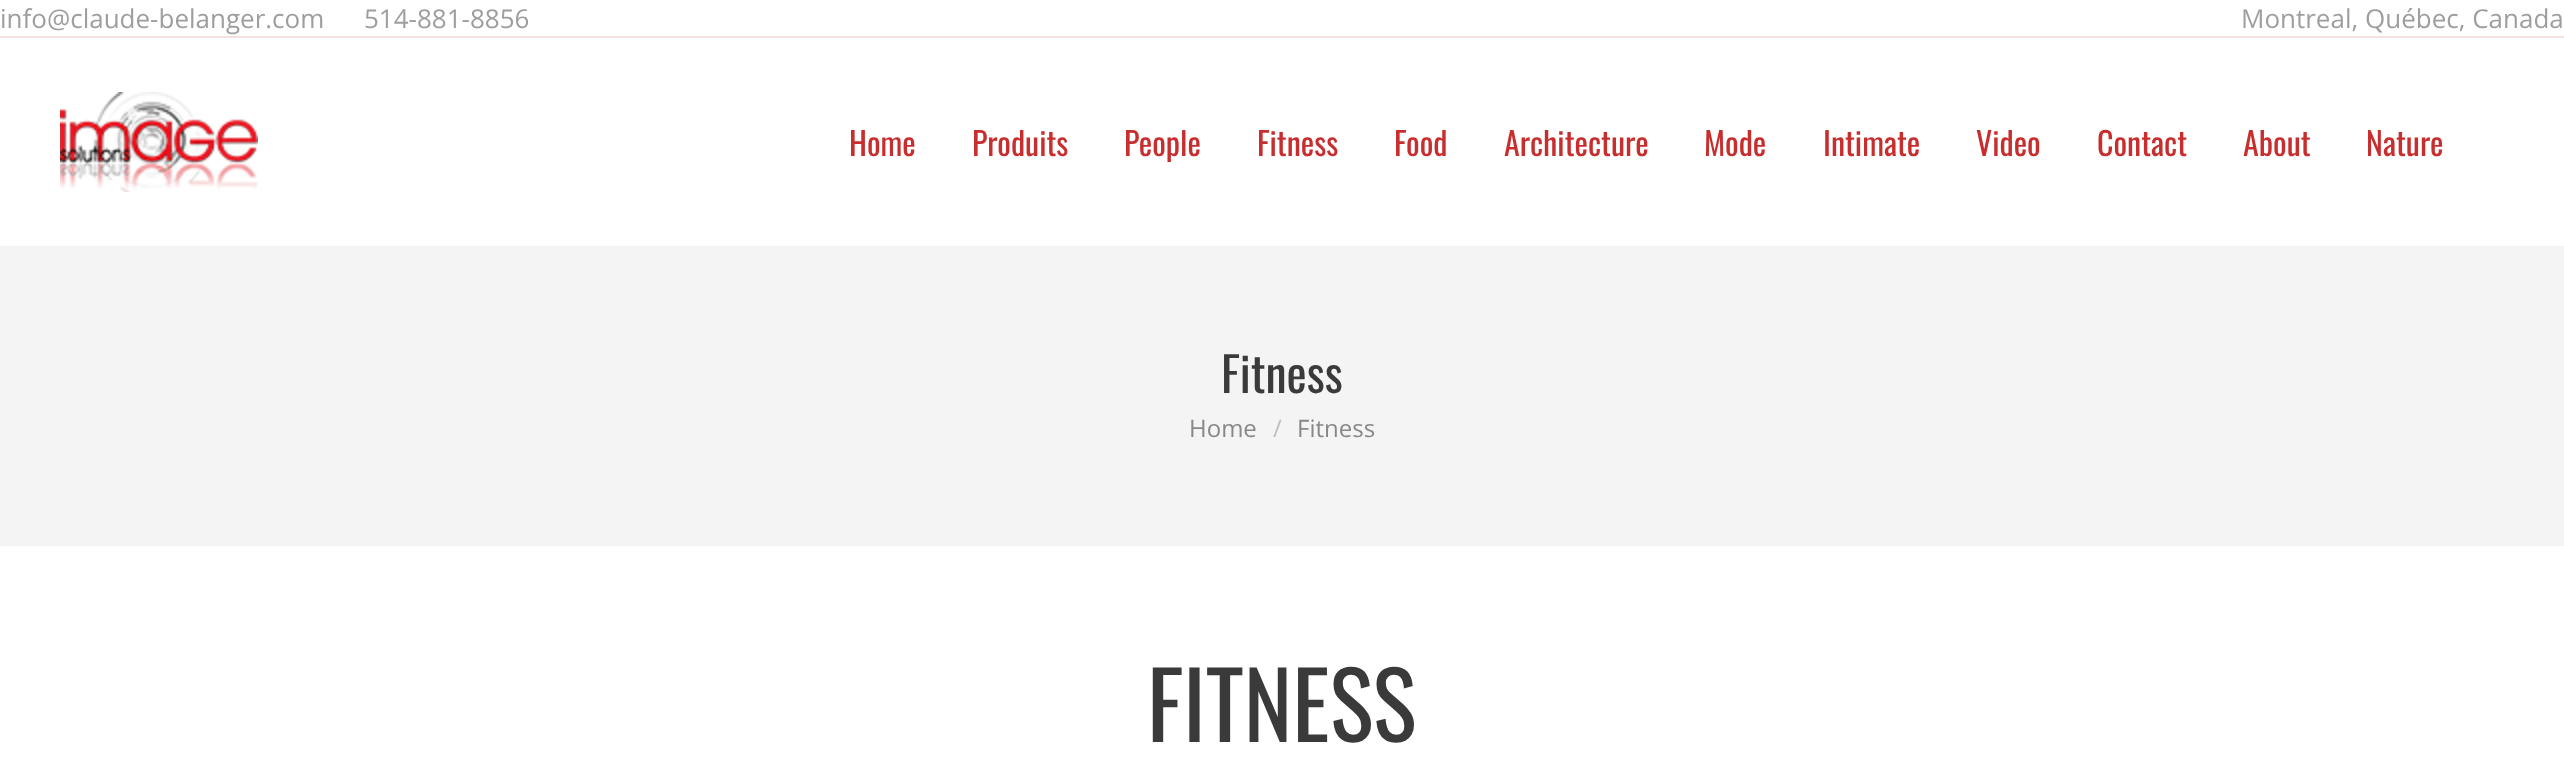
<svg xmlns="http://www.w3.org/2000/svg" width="2564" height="774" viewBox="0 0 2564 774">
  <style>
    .t1 { font: 26px Open Sans; fill: #9e9e9e; }
    .t2 { font: 32px Oswald; fill: #c92e2e; }
    .t3 { font: 48px Oswald; fill: #3a3a3a; }
    .t4 { font: 24px Open Sans; fill: #888; }
    .t5 { font: 24px Open Sans; fill: #bebebe; }
    .t6 { font: 92px Oswald; fill: #3a3a3a; }
  </style>
  <rect width="100%" height="100%" fill="#fff"/>
  <text x="0" y="28" class="t1">info@claude-belanger.com</text>
  <text x="364" y="28" class="t1">514-881-8856</text>
  <text x="2241" y="28" class="t1">Montreal, Québec, Canada</text>
  <rect x="0" y="36" width="2564" height="2" fill="#f7e0e0"/>
  <image x="60" y="92" width="198" height="100" href="images/1.png"/>
  <text x="849" y="156" class="t2">Home</text>
  <text x="972" y="156" class="t2">Produits</text>
  <text x="1124" y="156" class="t2">People</text>
  <text x="1257" y="156" class="t2">Fitness</text>
  <text x="1394" y="156" class="t2">Food</text>
  <text x="1504" y="156" class="t2">Architecture</text>
  <text x="1704" y="156" class="t2">Mode</text>
  <text x="1823" y="156" class="t2">Intimate</text>
  <text x="1976" y="156" class="t2">Video</text>
  <text x="2097" y="156" class="t2">Contact</text>
  <text x="2243" y="156" class="t2">About</text>
  <text x="2366" y="156" class="t2">Nature</text>
  <rect x="0" y="246" width="2564" height="300" fill="#f4f4f4"/>
  <text x="1221" y="393" class="t3">Fitness</text>
  <text x="1189" y="437" class="t4">Home</text>
  <text x="1273" y="437" class="t5">/</text>
  <text x="1297" y="437" class="t4">Fitness</text>
  <text x="1147" y="742" class="t6">FITNESS</text>
</svg>
